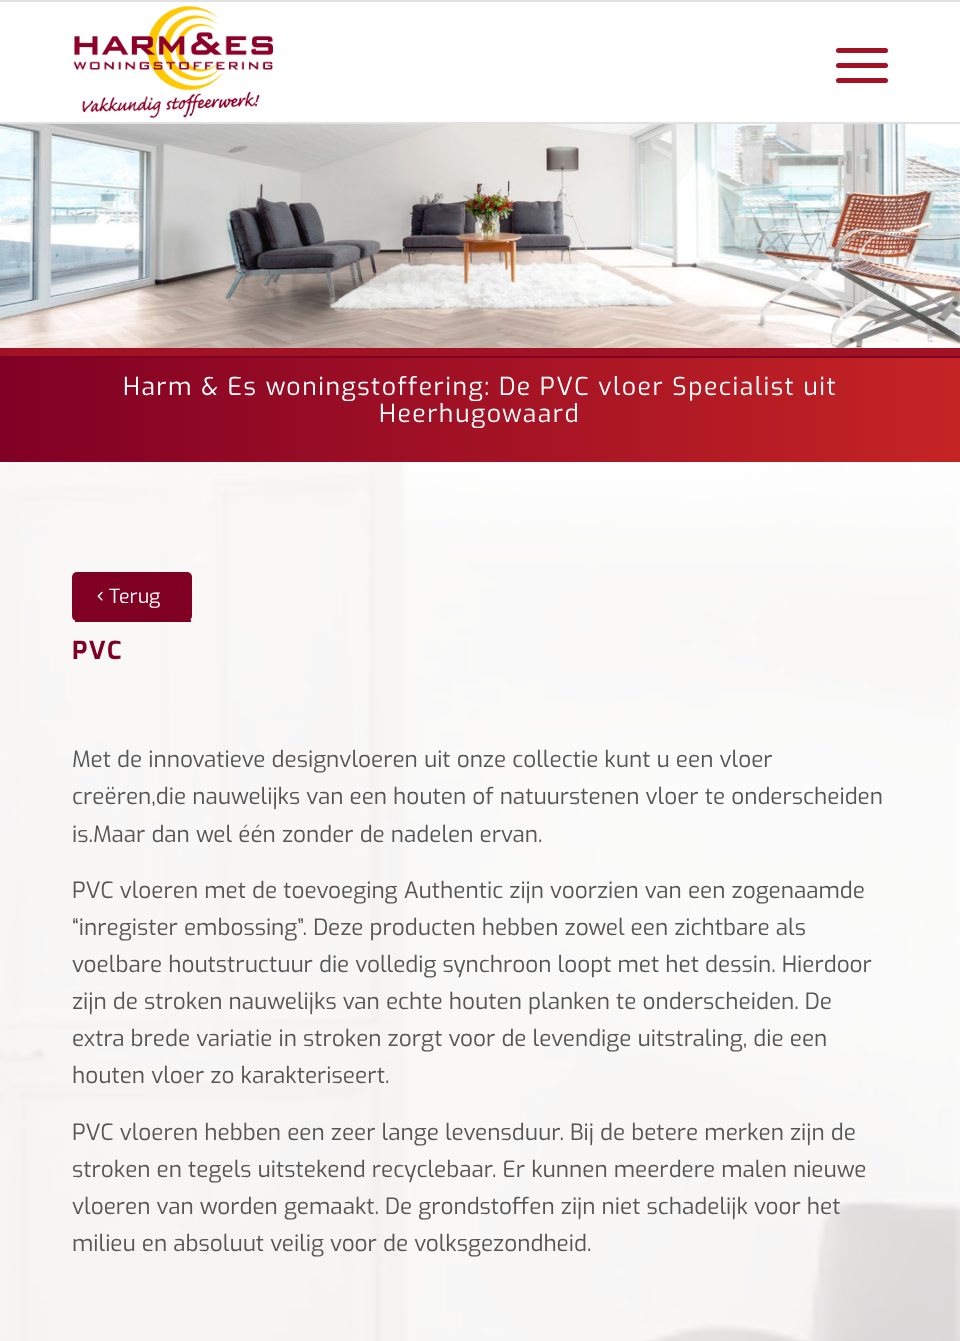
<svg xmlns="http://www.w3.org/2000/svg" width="960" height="1341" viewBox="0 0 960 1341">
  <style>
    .t1 { font: 24.75px Exo; letter-spacing: 1.5px; fill: #fff; }
    .t2 { font: 19.5px Exo; fill: #fff; }
    .t3 { font: bold 24.75px Exo; letter-spacing: 1.5px; fill: #800024; }
    .t4 { font: 22.5px Exo; fill: #565656; }
  </style>
  <defs>
    <linearGradient id="g1" gradientUnits="userSpaceOnUse" x1="0" y1="410" x2="960" y2="410"><stop offset="0" stop-color="#800025"/><stop offset="1" stop-color="#c52424"/></linearGradient>
  </defs>
  <rect width="100%" height="100%" fill="#fff"/>
  <rect x="0" y="0" width="960" height="2" fill="#e1e1e1"/>
  <rect x="0" y="122" width="960" height="2" fill="#e1e1e1"/>
  <image x="73" y="6" width="200" height="112" href="images/1.png"/>
  <rect x="836" y="63" width="52" height="5" rx="2.5" fill="#a21225"/>
  <rect x="836" y="48" width="52" height="5" rx="2.5" fill="#a21225"/>
  <rect x="836" y="78" width="52" height="5" rx="2.5" fill="#a21225"/>
  <rect x="0" y="348" width="960" height="8" fill="#a21225"/>
  <image x="0" y="124" width="960" height="224" href="images/2.png"/>
  <rect x="0" y="358" width="960" height="104" fill="url(#g1)"/>
  <rect x="0" y="356" width="960" height="2" fill="#800024"/>
  <text x="123" y="395" class="t1">Harm &amp; Es woningstoffering: De PVC vloer Specialist uit</text>
  <text x="379" y="422" class="t1">Heerhugowaard</text>
  <image x="0" y="462" width="960" height="879" href="images/3.png"/>
  <rect x="72" y="572" width="120" height="49" rx="5" fill="#800024"/>
  <rect x="75" y="620" width="116" height="2" fill="#800024"/>
  <image x="97" y="591" width="6" height="10" href="images/4.png"/>
  <text x="109" y="603" class="t2">Terug</text>
  <text x="72" y="659" class="t3">PVC</text>
  <text x="72" y="767" class="t4">Met de innovatieve designvloeren uit onze collectie kunt u een vloer</text>
  <text x="72" y="804" class="t4">creëren,die nauwelijks van een houten of natuurstenen vloer te onderscheiden</text>
  <text x="72" y="842" class="t4">is.Maar dan wel één zonder de nadelen ervan.</text>
  <text x="72" y="898" class="t4">PVC vloeren met de toevoeging Authentic zijn voorzien van een zogenaamde</text>
  <text x="72" y="935" class="t4">“inregister embossing”. Deze producten hebben zowel een zichtbare als</text>
  <text x="72" y="972" class="t4">voelbare houtstructuur die volledig synchroon loopt met het dessin. Hierdoor</text>
  <text x="72" y="1009" class="t4">zijn de stroken nauwelijks van echte houten planken te onderscheiden. De</text>
  <text x="72" y="1046" class="t4">extra brede variatie in stroken zorgt voor de levendige uitstraling, die een</text>
  <text x="72" y="1083" class="t4">houten vloer zo karakteriseert.</text>
  <text x="72" y="1140" class="t4">PVC vloeren hebben een zeer lange levensduur. Bij de betere merken zijn de</text>
  <text x="72" y="1177" class="t4">stroken en tegels uitstekend recyclebaar. Er kunnen meerdere malen nieuwe</text>
  <text x="72" y="1214" class="t4">vloeren van worden gemaakt. De grondstoffen zijn niet schadelijk voor het</text>
  <text x="72" y="1251" class="t4">milieu en absoluut veilig voor de volksgezondheid.</text>
</svg>
